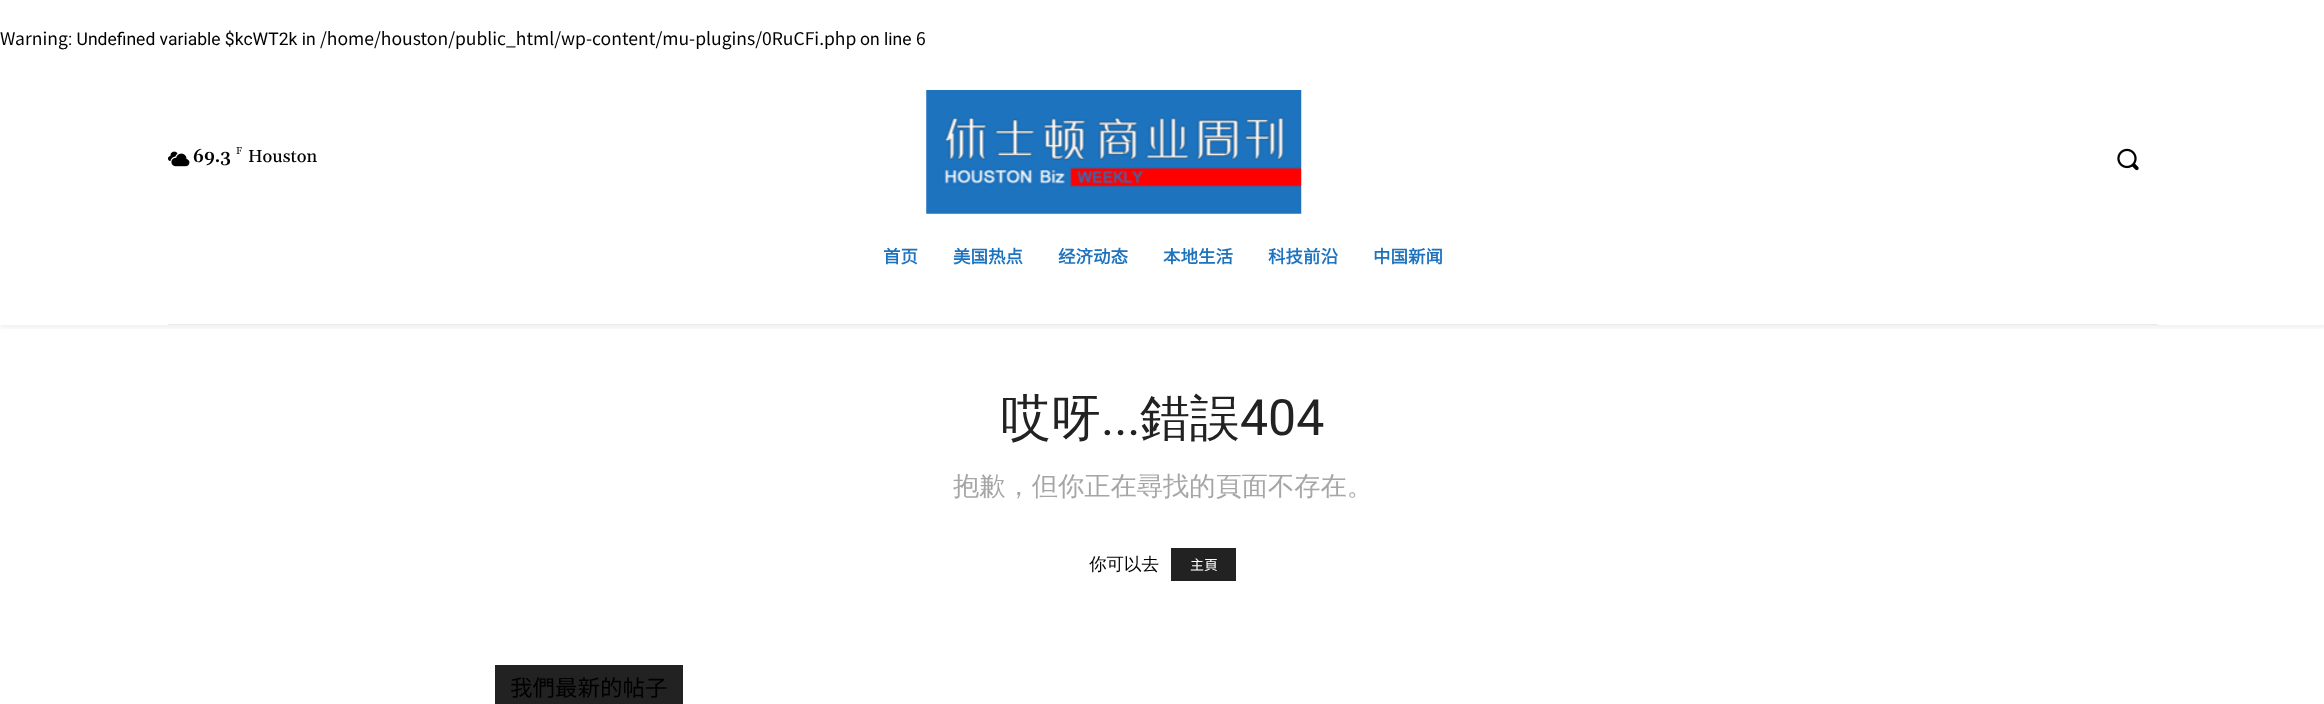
<svg xmlns="http://www.w3.org/2000/svg" width="2324" height="704" viewBox="0 0 2324 704">
  <style>
    .t1 { font: 17.5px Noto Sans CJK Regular; fill: #000; }
    .t2 { font: 17.5px Roboto; fill: #000; }
    .t3 { font: 600 17.5px Gelasio; fill: #000; }
    .t4 { font: 10px Gelasio; fill: #000; }
    .t5 { font: 500 17.5px Gelasio; fill: #000; }
    .t6 { font: bold 17.5px Noto Sans CJK Regular; fill: #1e73be; }
    .t7 { font: 500 50px WenQuanYi Zen Hei; fill: #222; }
    .t8 { font: 50px Roboto; fill: #222; }
    .t9 { font: 500 26.25px WenQuanYi Zen Hei; fill: #a6a6a6; }
    .t10 { font: 500 17.5px WenQuanYi Zen Hei; fill: #000; }
    .t11 { font: 14px Noto Sans CJK Regular; fill: #fff; }
    .t12 { font: 22.5px Noto Sans CJK Regular; fill: #000; }
  </style>
  <defs>
    <clipPath id="clip1"><rect x="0" y="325" width="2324" height="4"/></clipPath>
  </defs>
  <rect width="100%" height="100%" fill="#fff"/>
  <text x="0" y="45" class="t1">Warning</text>
  <text x="68" y="45" class="t2">: Undefined variable $kcWT2k in</text>
  <text x="320" y="45" class="t1">/home/houston/public_html/wp-content/mu-plugins/0RuCFi.php</text>
  <text x="860" y="45" class="t2">on line</text>
  <text x="916" y="45" class="t1">6</text>
  <image x="168" y="151" width="22" height="16" href="images/1.png"/>
  <text x="193" y="162" class="t3">69.3</text>
  <text x="236" y="154" class="t4">F</text>
  <text x="248" y="162" class="t5">Houston</text>
  <image x="926" y="90" width="376" height="124" href="images/2.png"/>
  <image x="2117" y="148" width="22" height="23" href="images/3.png"/>
  <rect x="168" y="324" width="1990" height="1" fill="#eaeaea"/>
  <g clip-path="url(#clip1)">
    <rect x="0" y="229" width="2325" height="99" fill="#0000000f" filter="blur(2.5px)"/>
  </g>
  <text x="883" y="263" class="t6">首页</text>
  <text x="953" y="263" class="t6">美国热点</text>
  <text x="1058" y="263" class="t6">经济动态</text>
  <text x="1163" y="263" class="t6">本地生活</text>
  <text x="1268" y="263" class="t6">科技前沿</text>
  <text x="1373" y="263" class="t6">中国新闻</text>
  <text x="1001" y="435" class="t7">哎呀</text>
  <text x="1101" y="435" class="t8">...</text>
  <text x="1140" y="435" class="t7">錯誤</text>
  <text x="1240" y="435" class="t8">404</text>
  <text x="953" y="495" class="t9">抱歉，但你正在尋找的頁面不存在。</text>
  <text x="1089" y="570" class="t10">你可以去</text>
  <rect x="1171" y="548" width="65" height="33" fill="#222"/>
  <text x="1190" y="570" class="t11">主頁</text>
  <rect x="495" y="665" width="188" height="39" fill="#222"/>
  <text x="510" y="696" class="t12">我們最新的帖子</text>
</svg>
